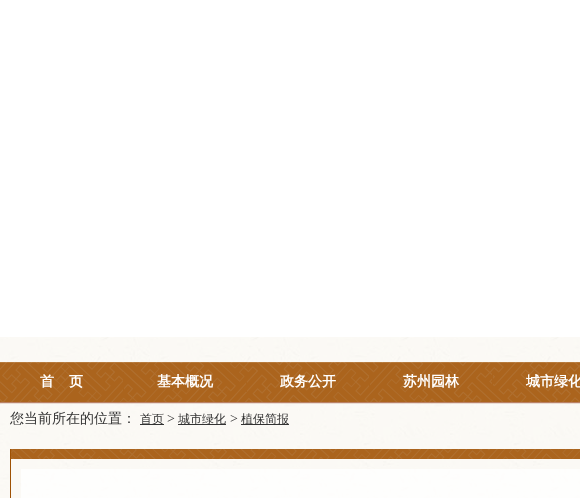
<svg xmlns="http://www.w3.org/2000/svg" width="580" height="498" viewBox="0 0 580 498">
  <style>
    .t1 { font: bold 14px WenQuanYi Zen Hei; fill: #fff; }
    .t2 { font: 500 14px WenQuanYi Zen Hei; fill: #333; }
    .t3 { font: 500 12px WenQuanYi Zen Hei; fill: #333; }
    .t4 { font: 14px Liberation Serif; fill: #333; }
  </style>
  <rect width="100%" height="100%" fill="#fff"/>
  <image x="0" y="337" width="580" height="161" href="images/2.png"/>
  <image x="0" y="362" width="580" height="42" href="images/1.png"/>
  <text x="40" y="386" class="t1">首</text>
  <text x="69" y="386" class="t1">页</text>
  <rect x="123" y="372" width="1" height="20" fill="#ab641d"/>
  <text x="157" y="386" class="t1">基本概况</text>
  <rect x="246" y="382" width="1" height="10" fill="#ab641d"/>
  <text x="280" y="386" class="t1">政务公开</text>
  <rect x="369" y="372" width="1" height="20" fill="#ab641d"/>
  <text x="403" y="386" class="t1">苏州园林</text>
  <rect x="492" y="372" width="1" height="20" fill="#ab641d"/>
  <text x="526" y="386" class="t1">城市绿化</text>
  <text x="10" y="423" class="t2">您当前所在的位置：</text>
  <rect x="140" y="424" width="24" height="1" fill="#333"/>
  <text x="140" y="423" class="t3">首页</text>
  <text x="167" y="423" class="t4">&gt;</text>
  <rect x="178" y="424" width="48" height="1" fill="#333"/>
  <text x="178" y="423" class="t3">城市绿化</text>
  <text x="230" y="423" class="t4">&gt;</text>
  <rect x="241" y="424" width="48" height="1" fill="#333"/>
  <text x="241" y="423" class="t3">植保简报</text>
  <image x="11" y="449" width="569" height="10" href="images/3.png"/>
  <rect x="10" y="449" width="1" height="49" fill="#9e5104"/>
  <rect x="21" y="469" width="559" height="29" fill="#ffffffbf"/>
</svg>
